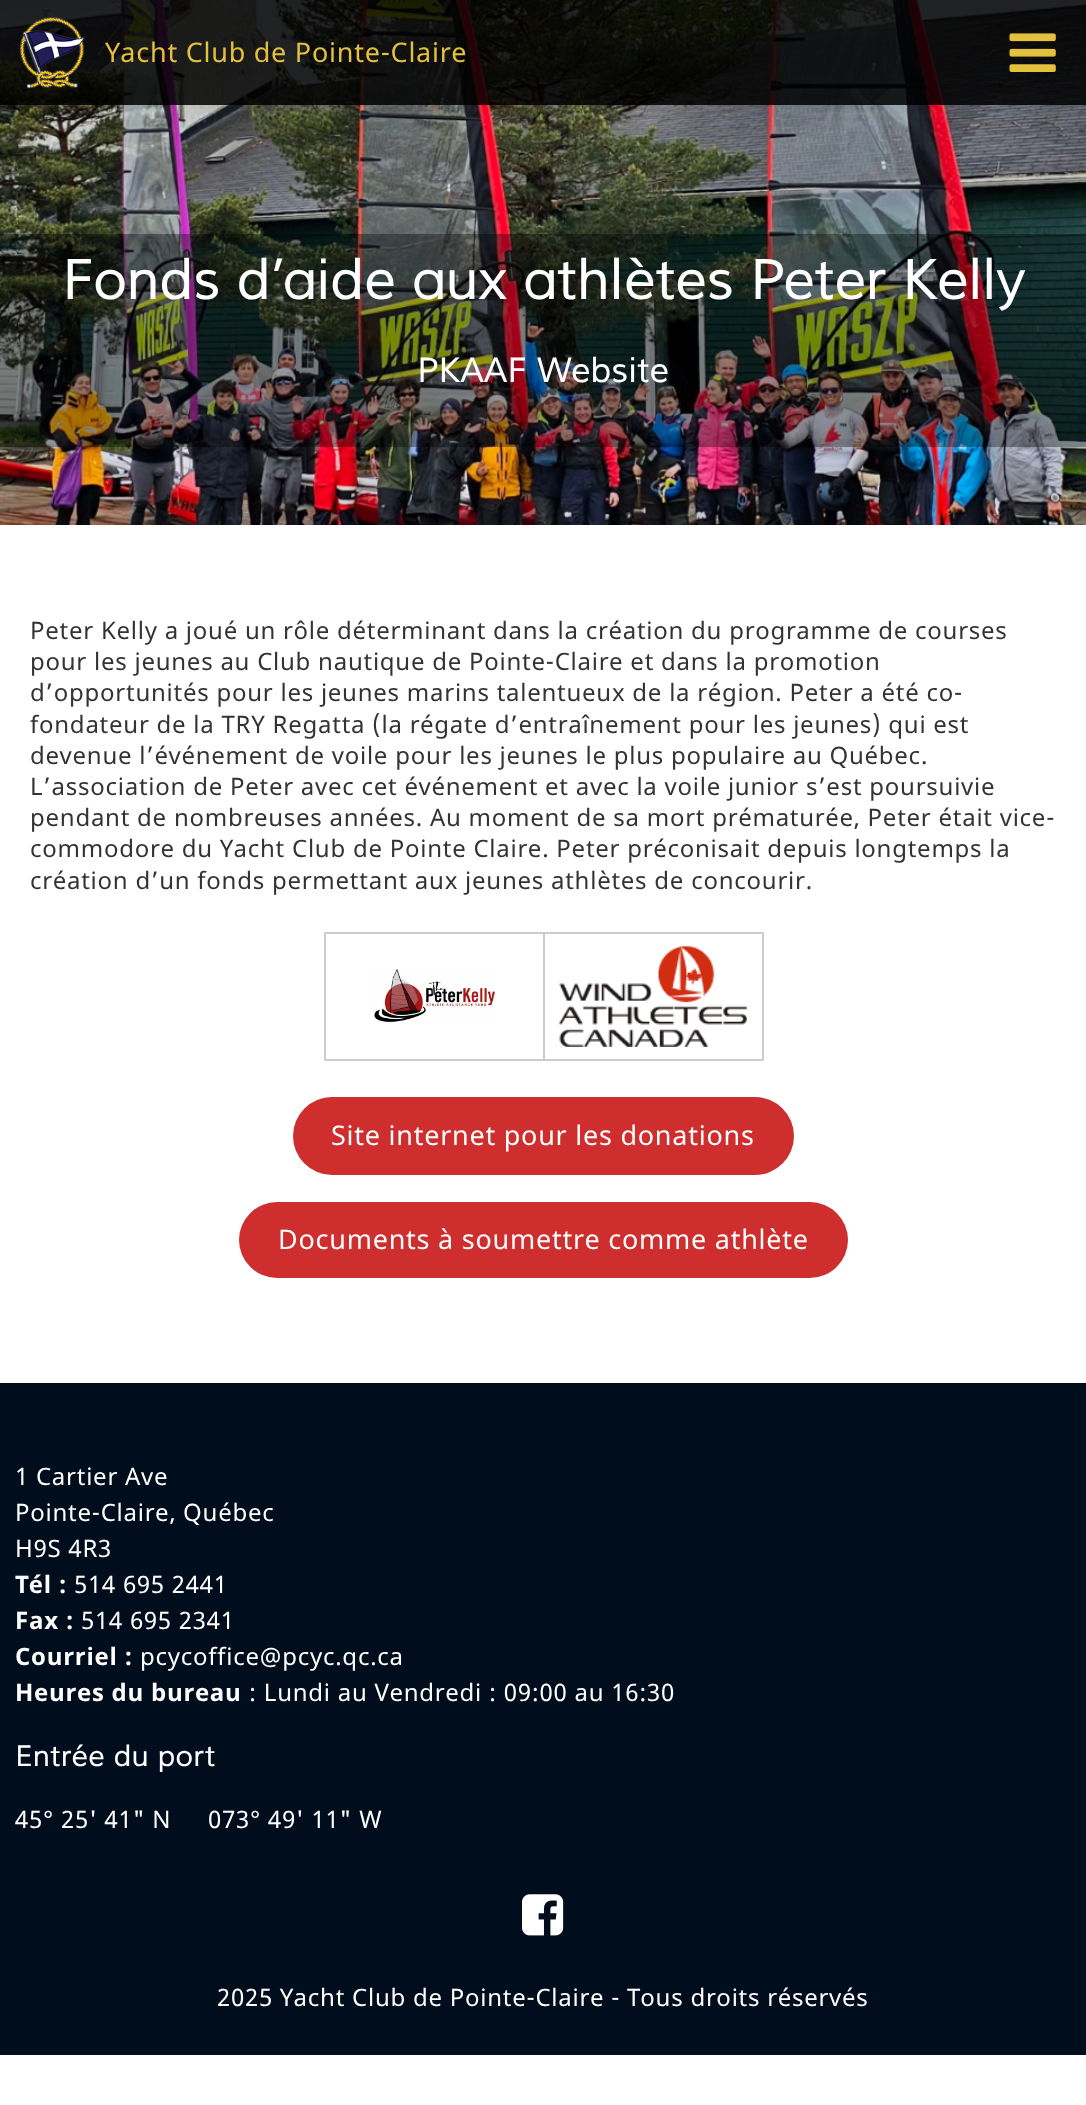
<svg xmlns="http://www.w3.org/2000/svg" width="1086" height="2105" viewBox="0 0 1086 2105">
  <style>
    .t1 { font: 27px Noto Sans; letter-spacing: 0.75px; fill: #e4c13d; }
    .t2 { font: bold 54px Muli; letter-spacing: 0.75px; fill: #fff; }
    .t3 { font: bold 33px Muli; letter-spacing: 0.75px; fill: #fff; }
    .t4 { font: 24px Noto Sans; letter-spacing: 0.75px; fill: #333; }
    .t5 { font: 27px Noto Sans; letter-spacing: 0.75px; fill: #fff; }
    .t6 { font: 24px Noto Sans; letter-spacing: 0.75px; fill: #fff; }
    .t7 { font: bold 24px Noto Sans; letter-spacing: 0.75px; fill: #fff; }
    .t8 { font: bold 28px Muli; letter-spacing: 0.75px; fill: #fff; }
  </style>
  <rect width="100%" height="100%" fill="#fff"/>
  <image x="0" y="0" width="1086" height="525" href="images/1.png"/>
  <rect x="0" y="0" width="1086" height="105" fill="#000000d9"/>
  <image x="19" y="17" width="67" height="72" href="images/2.png"/>
  <text x="105" y="62" class="t1">Yacht Club de Pointe-Claire</text>
  <image x="1009" y="33" width="47" height="39" href="images/3.png"/>
  <rect x="0" y="234" width="1086" height="213" fill="#00000059"/>
  <text x="62" y="299" class="t2">Fonds d’aide aux athlètes Peter Kelly</text>
  <text x="417" y="382" class="t3">PKAAF Website</text>
  <text x="30" y="639" class="t4">Peter Kelly a joué un rôle déterminant dans la création du programme de courses</text>
  <text x="30" y="670" class="t4">pour les jeunes au Club nautique de Pointe-Claire et dans la promotion</text>
  <text x="30" y="701" class="t4">d’opportunités pour les jeunes marins talentueux de la région. Peter a été co-</text>
  <text x="30" y="733" class="t4">fondateur de la TRY Regatta (la régate d’entraînement pour les jeunes) qui est</text>
  <text x="30" y="764" class="t4">devenue l’événement de voile pour les jeunes le plus populaire au Québec.</text>
  <text x="30" y="795" class="t4">L’association de Peter avec cet événement et avec la voile junior s’est poursuivie</text>
  <text x="30" y="826" class="t4">pendant de nombreuses années. Au moment de sa mort prématurée, Peter était vice-</text>
  <text x="30" y="857" class="t4">commodore du Yacht Club de Pointe Claire. Peter préconisait depuis longtemps la</text>
  <text x="30" y="889" class="t4">création d’un fonds permettant aux jeunes athlètes de concourir.</text>
  <rect x="543" y="932" width="221" height="2" fill="#ccc"/>
  <rect x="762" y="932" width="2" height="129" fill="#ccc"/>
  <rect x="543" y="1059" width="221" height="2" fill="#ccc"/>
  <rect x="543" y="932" width="2" height="129" fill="#ccc"/>
  <rect x="324" y="932" width="221" height="2" fill="#ccc"/>
  <rect x="324" y="1059" width="221" height="2" fill="#ccc"/>
  <rect x="324" y="932" width="2" height="129" fill="#ccc"/>
  <image x="374" y="969" width="121" height="54" href="images/4.png"/>
  <image x="559" y="946" width="188" height="101" href="images/5.png"/>
  <rect x="293" y="1097" width="501" height="78" rx="39" fill="#cf2e2e"/>
  <text x="331" y="1145" class="t5">Site internet pour les donations</text>
  <rect x="239" y="1202" width="609" height="76" rx="38" fill="#cf2e2e"/>
  <text x="278" y="1249" class="t5">Documents à soumettre comme athlète</text>
  <rect x="0" y="1383" width="1086" height="672" fill="#000d1c"/>
  <text x="15" y="1485" class="t6">1 Cartier Ave</text>
  <text x="15" y="1521" class="t6">Pointe-Claire, Québec</text>
  <text x="15" y="1557" class="t6">H9S 4R3</text>
  <text x="15" y="1593" class="t7">Tél :</text>
  <text x="74" y="1593" class="t6">514 695 2441</text>
  <text x="15" y="1629" class="t7">Fax :</text>
  <text x="81" y="1629" class="t6">514 695 2341</text>
  <text x="15" y="1665" class="t7">Courriel :</text>
  <text x="140" y="1665" class="t6">pcycoffice@pcyc.qc.ca</text>
  <text x="15" y="1701" class="t7">Heures du bureau</text>
  <text x="249" y="1701" class="t6">: Lundi au Vendredi : 09:00 au 16:30</text>
  <text x="15" y="1766" class="t8">Entrée du port</text>
  <text x="15" y="1828" class="t6">45° 25' 41" N</text>
  <text x="208" y="1828" class="t6">073° 49' 11" W</text>
  <image x="522" y="1894" width="42" height="42" href="images/6.png"/>
  <text x="217" y="2006" class="t6">2025 Yacht Club de Pointe-Claire - Tous droits réservés</text>
</svg>
